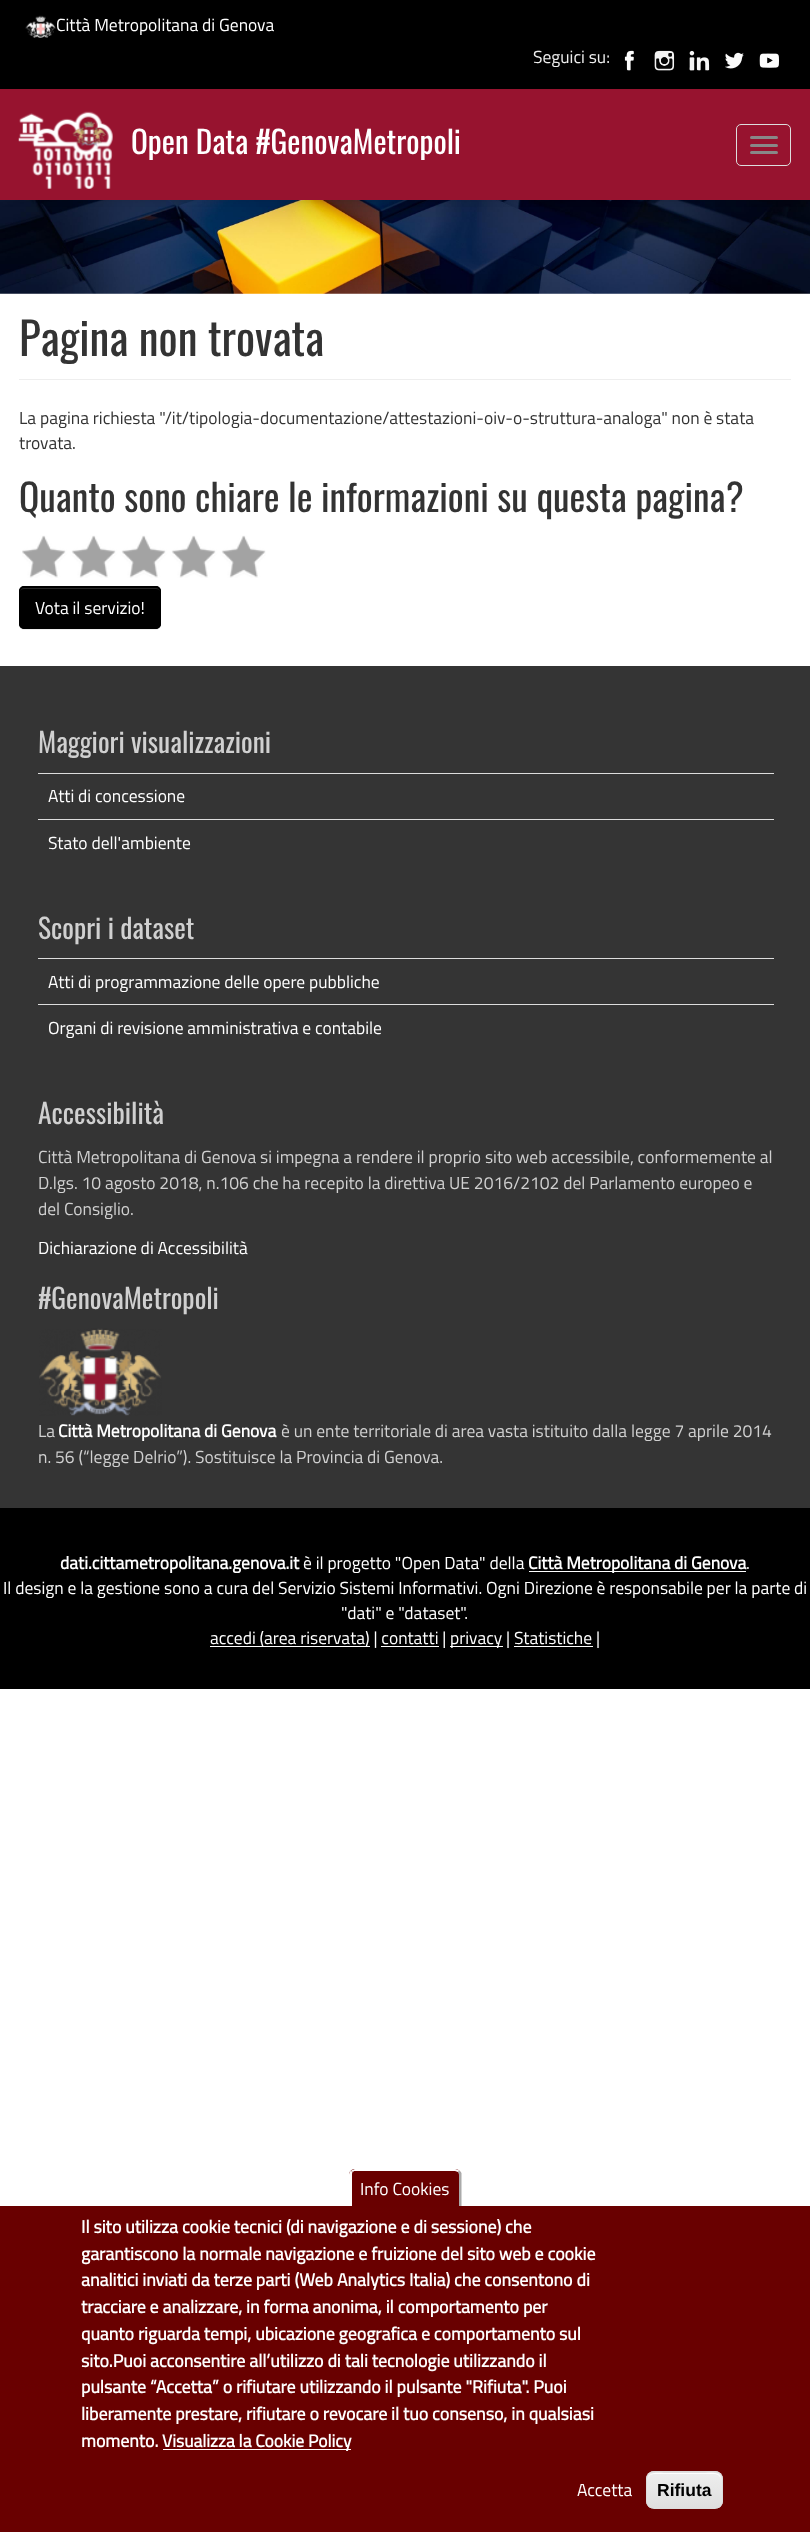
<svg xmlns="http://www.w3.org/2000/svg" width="810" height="2532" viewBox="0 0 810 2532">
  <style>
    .t1 { font: 17.5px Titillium; fill: #fff; }
    .t2 { font: 17.5px Titillium; fill: #eee; }
    .t3 { font: 31.25px Oswald; fill: #fff; }
    .t4 { font: 45px Oswald; fill: #333; }
    .t5 { font: 17.5px Titillium; fill: #333; }
    .t6 { font: 37.5px Oswald; fill: #333; }
    .t7 { font: 27.5px Oswald; fill: #d0d0d0; }
    .t8 { font: 17.5px Titillium; fill: #d0d0d0; }
    .t9 { font: bold 17.5px Titillium; fill: #fff; }
    .t10 { font: bold 17.85px Titillium; fill: #fff; }
    .t11 { font: bold 17.5px Liberation Sans; fill: #000; }
  </style>
  <defs>
    <clipPath id="clip1"><rect x="646" y="2471" width="77" height="38" rx="8"/></clipPath>
    <linearGradient id="g1" gradientUnits="userSpaceOnUse" x1="684" y1="2438" x2="684" y2="2473"><stop offset="0.05" stop-color="#ededed"/><stop offset="1" stop-color="#dfdfdf"/></linearGradient>
    <linearGradient id="g2" gradientUnits="userSpaceOnUse" x1="684" y1="2473" x2="684" y2="2508"><stop offset="0.05" stop-color="#ededed"/><stop offset="1" stop-color="#dfdfdf"/></linearGradient>
  </defs>
  <rect width="100%" height="100%" fill="#fff"/>
  <image x="0" y="200" width="810" height="94" href="images/8.png"/>
  <rect x="0" y="1" width="810" height="200" fill="#00000012" filter="blur(3px)"/>
  <rect x="0" y="89" width="810" height="111" fill="#97132f"/>
  <rect x="0" y="0" width="810" height="89" fill="#000"/>
  <image x="25" y="15" width="31" height="23" href="images/1.png"/>
  <text x="56" y="31" class="t1">Città Metropolitana di Genova</text>
  <text x="533" y="63" class="t2">Seguici su:</text>
  <image x="624" y="50" width="10" height="21" href="images/2.png"/>
  <image x="654" y="50" width="21" height="21" href="images/3.png"/>
  <image x="689" y="50" width="21" height="21" href="images/4.png"/>
  <image x="725" y="52" width="19" height="17" href="images/5.png"/>
  <image x="759" y="53" width="20" height="15" href="images/6.png"/>
  <image x="18" y="111" width="95" height="78" href="images/7.png"/>
  <text x="131" y="154" class="t3">Open Data #GenovaMetropoli</text>
  <rect x="736.5" y="124.5" width="54" height="41" rx="4.5" fill="none" stroke="#ddd"/>
  <rect x="750" y="136" width="28" height="3" rx="1.5" fill="#888"/>
  <rect x="750" y="144" width="28" height="3" rx="1.5" fill="#888"/>
  <rect x="750" y="151" width="28" height="3" rx="1.5" fill="#888"/>
  <rect x="19" y="379" width="772" height="1" fill="#eee"/>
  <text x="19" y="356" class="t4">Pagina non trovata</text>
  <text x="19" y="424" class="t5">La pagina richiesta "/it/tipologia-documentazione/attestazioni-oiv-o-struttura-analoga" non è stata</text>
  <text x="19" y="449" class="t5">trovata.</text>
  <text x="19" y="512" class="t6">Quanto sono chiare le informazioni su questa pagina?</text>
  <image x="22" y="535" width="244" height="43" href="images/9.png"/>
  <rect x="19" y="588" width="142" height="42" rx="5" fill="#00000012" filter="blur(0.5px)"/>
  <rect x="19" y="586" width="142" height="43" rx="5" fill="#000"/>
  <path d="M24 589H156C158 589 160 590 160 592C160 590 158 588 156 588H24C22 588 20 590 20 592C20 590 22 589 24 589Z" fill="#262626"/>
  <rect x="19.5" y="586.5" width="141" height="42" rx="4.5" fill="none" stroke="#000"/>
  <text x="35" y="614" class="t1">Vota il servizio!</text>
  <rect x="0" y="666" width="810" height="842" fill="#343434"/>
  <text x="38" y="753" class="t7">Maggiori visualizzazioni</text>
  <rect x="38" y="773" width="736" height="1" fill="#ddd"/>
  <text x="48" y="802" class="t1">Atti di concessione</text>
  <rect x="38" y="819" width="736" height="1" fill="#ddd"/>
  <text x="48" y="849" class="t1">Stato dell'ambiente</text>
  <text x="38" y="939" class="t7">Scopri i dataset</text>
  <rect x="38" y="958" width="736" height="1" fill="#ddd"/>
  <text x="48" y="988" class="t1">Atti di programmazione delle opere pubbliche</text>
  <rect x="38" y="1004" width="736" height="1" fill="#ddd"/>
  <text x="48" y="1034" class="t1">Organi di revisione amministrativa e contabile</text>
  <text x="38" y="1124" class="t7">Accessibilità</text>
  <text x="38" y="1163" class="t8">Città Metropolitana di Genova si impegna a rendere il proprio sito web accessibile, conformemente al</text>
  <text x="38" y="1189" class="t8">D.lgs. 10 agosto 2018, n.106 che ha recepito la direttiva UE 2016/2102 del Parlamento europeo e</text>
  <text x="38" y="1215" class="t8">del Consiglio.</text>
  <text x="38" y="1254" class="t1">Dichiarazione di Accessibilità</text>
  <text x="38" y="1309" class="t7">#GenovaMetropoli</text>
  <image x="39" y="1328" width="123" height="88" href="images/10.png"/>
  <text x="38" y="1437" class="t8">La</text>
  <text x="58" y="1437" class="t9">Città Metropolitana di Genova</text>
  <text x="281" y="1437" class="t8">è un ente territoriale di area vasta istituito dalla legge 7 aprile 2014</text>
  <text x="38" y="1463" class="t8">n. 56 (“legge Delrio”). Sostituisce la Provincia di Genova.</text>
  <rect x="0" y="1508" width="810" height="181" fill="#000"/>
  <text x="60" y="1569" class="t9">dati.cittametropolitana.genova.it</text>
  <text x="303" y="1569" class="t1">è il progetto "Open Data" della</text>
  <rect x="529" y="1571" width="217" height="1" fill="#fff"/>
  <text x="528" y="1569" class="t9">Città Metropolitana di Genova</text>
  <text x="746" y="1569" class="t1">.</text>
  <text x="3" y="1594" class="t1">Il design e la gestione sono a cura del Servizio Sistemi Informativi. Ogni Direzione è responsabile per la parte di</text>
  <text x="341" y="1619" class="t1">"dati" e "dataset".</text>
  <rect x="210" y="1646" width="160" height="1" fill="#fff"/>
  <text x="210" y="1644" class="t1">accedi (area riservata) | contatti |</text>
  <rect x="450" y="1646" width="53" height="1" fill="#fff"/>
  <text x="450" y="1644" class="t1">privacy | Statistiche |</text>
  <rect x="381" y="1646" width="58" height="1" fill="#fff"/>
  <rect x="514" y="1646" width="79" height="1" fill="#fff"/>
  <rect x="0" y="2206" width="810" height="326" fill="#690000"/>
  <path d="M355 2169H455C458.5 2169 461 2171.5 461 2175V2206H349V2175C349 2171.5 351.5 2169 355 2169Z" fill="#690000"/>
  <path d="M355 2169H455C457 2169 458 2170 460 2171L458 2172L455 2171H354L353 2172L351 2171C352 2170 354 2169 355 2169Z" fill="#fff"/>
  <path d="M459.5 2170.5L461.5 2173V2206H459V2175C459 2174 458.5 2173 458 2172.5Z" fill="#aaa"/>
  <path d="M351 2170.5L352.5 2172.5C352 2173 352 2174 352 2175V2206H349V2174.5C349 2173 350 2171.5 351 2170.5Z" fill="#fff"/>
  <text x="360" y="2195" class="t1">Info Cookies</text>
  <text x="81" y="2233" class="t10">Il sito utilizza cookie tecnici (di navigazione e di sessione) che</text>
  <text x="81" y="2260" class="t10">garantiscono la normale navigazione e fruizione del sito web e cookie</text>
  <text x="81" y="2286" class="t10">analitici inviati da terze parti (Web Analytics Italia) che consentono di</text>
  <text x="81" y="2313" class="t10">tracciare e analizzare, in forma anonima, il comportamento per</text>
  <text x="81" y="2340" class="t10">quanto riguarda tempi, ubicazione geografica e comportamento sul</text>
  <text x="81" y="2367" class="t10">sito.Puoi acconsentire all’utilizzo di tali tecnologie utilizzando il</text>
  <text x="81" y="2393" class="t10">pulsante “Accetta” o rifiutare utilizzando il pulsante "Rifiuta". Puoi</text>
  <text x="81" y="2420" class="t10">liberamente prestare, rifiutare o revocare il tuo consenso, in qualsiasi</text>
  <text x="81" y="2447" class="t10">momento.</text>
  <rect x="163" y="2449" width="188" height="1" fill="#fff"/>
  <text x="162" y="2447" class="t9">Visualizza la Cookie Policy</text>
  <text x="577" y="2496" class="t1">Accetta</text>
  <g clip-path="url(#clip1)">
    <rect x="646" y="2471" width="77" height="2" fill="url(#g1)"/>
    <rect x="646" y="2473" width="77" height="35" fill="url(#g2)"/>
  </g>
  <path d="M654 2474H715C718 2474 721 2477 721 2480C721 2471 711 2473 705 2473H664C658 2473 648 2471 648 2480C648 2477 650 2474 654 2474Z" fill="#fff"/>
  <rect x="646.5" y="2471.5" width="76" height="37" rx="7.5" fill="none" stroke="#dcdcdc"/>
  <text x="657" y="2496" class="t11">Rifiuta</text>
</svg>
